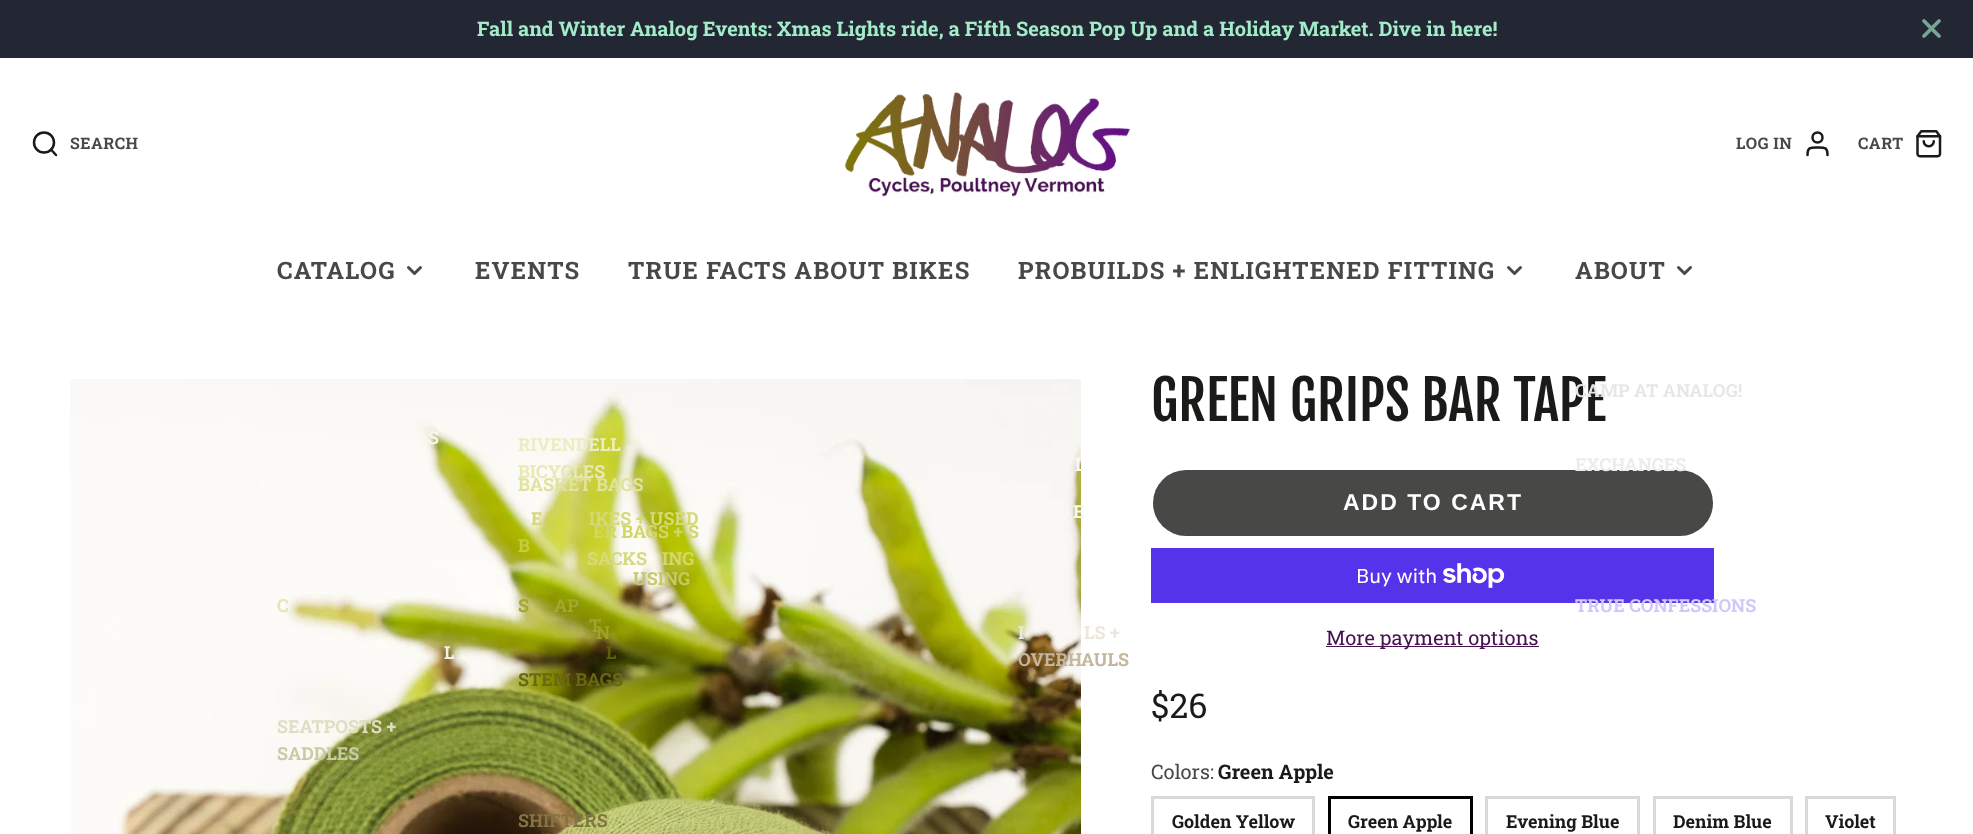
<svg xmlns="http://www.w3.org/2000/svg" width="1973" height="834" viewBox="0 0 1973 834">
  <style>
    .t1 { font: bold 20px Roboto Slab; fill: #a3ecca; }
    .t2 { font: bold 16px Roboto Slab; letter-spacing: 0.5px; fill: #484946; }
    .t3 { font: bold 24px Roboto Slab; letter-spacing: 1.2px; fill: #484946; }
    .t4 { font: bold 18px Roboto Slab; fill: #f8f6f0; }
    .t5 { font: bold 18px Roboto Slab; fill: #ecedc0; }
    .t6 { font: bold 18px Roboto Slab; fill: #e8e9b3; }
    .t7 { font: bold 18px Roboto Slab; fill: #d5d977; }
    .t8 { font: bold 18px Roboto Slab; fill: #c5cc41; }
    .t9 { font: bold 18px Roboto Slab; fill: #e0e29e; }
    .t10 { font: bold 18px Roboto Slab; fill: #d2d666; }
    .t11 { font: bold 18px Roboto Slab; fill: #d6da7f; }
    .t12 { font: bold 18px Roboto Slab; fill: #a4a833; }
    .t13 { font: bold 18px Roboto Slab; fill: #9da41d; }
    .t14 { font: bold 18px Roboto Slab; fill: #696914; }
    .t15 { font: bold 18px Roboto Slab; fill: #d3d86d; }
    .t16 { font: bold 18px Roboto Slab; fill: #c5ca67; }
    .t17 { font: bold 18px Roboto Slab; fill: #a0a529; }
    .t18 { font: bold 18px Roboto Slab; fill: #837542; }
    .t19 { font: bold 18px Roboto Slab; fill: #e9e3ba; }
    .t20 { font: bold 18px Roboto Slab; fill: #5f5e07; }
    .t21 { font: bold 18px Roboto Slab; fill: #f3efe4; }
    .t22 { font: bold 18px Roboto Slab; fill: #dddec4; }
    .t23 { font: bold 18px Roboto Slab; fill: #c8cca6; }
    .t24 { font: bold 18px Roboto Slab; fill: #faf9f6; }
    .t25 { font: bold 18px Roboto Slab; fill: #ebe7dc; }
    .t26 { font: bold 18px Roboto Slab; fill: #c4b69f; }
    .t27 { font: 54px Fjalla One; fill: #1a1b18; }
    .t28 { font: bold 18px Roboto Slab; fill: #e7e7e6; }
    .t29 { font: bold 18px Roboto Slab; fill: #ececec; }
    .t30 { font: bold 18px Roboto Slab; fill: #d1c8fa; }
    .t31 { font: bold 23px Liberation Sans; letter-spacing: 2px; fill: #fff; }
    .t32 { font: 20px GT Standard; fill: #fff; }
    .t33 { font: 20px Roboto Slab; fill: #471151; }
    .t34 { font: 34px Roboto Slab; fill: #1a1b18; }
    .t35 { font: 20px Roboto Slab; fill: #484946; }
    .t36 { font: bold 20px Roboto Slab; fill: #1a1b18; }
    .t37 { font: bold 18px Roboto Slab; fill: #1a1b18; }
  </style>
  <rect width="100%" height="100%" fill="#fff"/>
  <rect x="0" y="0" width="1973" height="58" fill="#232734"/>
  <text x="477" y="36" class="t1">Fall and Winter Analog Events: Xmas Lights ride, a Fifth Season Pop Up and a Holiday Market. Dive in here!</text>
  <path d="M1939 21L1924 36M1924 21L1939 36" fill="none" stroke="#75a594" stroke-width="3.8" stroke-linecap="round" stroke-linejoin="round"/>
  <circle cx="44" cy="142.5" r="10" fill="none" stroke="#1a1b18" stroke-width="2.5"/>
  <path d="M56 155L51 149.5" fill="none" stroke="#1a1b18" stroke-width="2.5" stroke-linecap="round" stroke-linejoin="round"/>
  <text x="70" y="149" class="t2">SEARCH</text>
  <image x="844" y="92" width="287" height="105" href="images/1.png"/>
  <text x="1736" y="149" class="t2">LOG IN</text>
  <circle cx="1817.5" cy="137.5" r="5" fill="none" stroke="#1a1b18" stroke-width="2.5"/>
  <path d="M1827.5 155C1827.5 147 1824.5 147.5 1817.5 147.5C1810.5 147.5 1807.5 147 1807.5 155" fill="none" stroke="#1a1b18" stroke-width="2.5" stroke-linecap="round" stroke-linejoin="round"/>
  <text x="1858" y="149" class="t2">CART</text>
  <image x="1916" y="130" width="26" height="28" href="images/2.png"/>
  <text x="277" y="279" class="t3">CATALOG</text>
  <path d="M408.5 267.5L414.5 273.5L420.5 267.5" fill="none" stroke="#484946" stroke-width="3" stroke-linecap="round" stroke-linejoin="round"/>
  <image x="70" y="379" width="1011" height="455" href="images/3.png"/>
  <text x="428" y="444" class="t4">S</text>
  <text x="518" y="451" class="t5">RIVENDELL</text>
  <text x="518" y="478" class="t6">BICYCLES</text>
  <text x="531" y="525" class="t7">E</text>
  <text x="589" y="525" class="t7">IKES + USED</text>
  <text x="518" y="552" class="t8">B</text>
  <text x="518" y="491" class="t9">BASKET BAGS</text>
  <text x="593" y="538" class="t10">ER BAGS +</text>
  <text x="587" y="565" class="t11">SACKS</text>
  <text x="518" y="612" class="t12">S</text>
  <text x="554" y="612" class="t12">AP</text>
  <text x="596" y="639" class="t13">N</text>
  <text x="518" y="686" class="t14">STEM BAGS</text>
  <text x="688" y="538" class="t15">S</text>
  <text x="633" y="585" class="t16">USING</text>
  <text x="589" y="632" class="t17">T</text>
  <text x="518" y="827" class="t18">SHIFTERS</text>
  <text x="277" y="612" class="t19">C</text>
  <text x="662" y="565" class="t15">ING</text>
  <text x="606" y="659" class="t20">L</text>
  <text x="444" y="659" class="t21">L</text>
  <text x="277" y="733" class="t22">SEATPOSTS +</text>
  <text x="277" y="760" class="t23">SADDLES</text>
  <text x="475" y="279" class="t3">EVENTS</text>
  <text x="628" y="279" class="t3">TRUE FACTS ABOUT BIKES</text>
  <text x="1018" y="279" class="t3">PROBUILDS + ENLIGHTENED FITTING</text>
  <path d="M1508.5 267.5L1514.5 273.5L1520.5 267.5" fill="none" stroke="#484946" stroke-width="3" stroke-linecap="round" stroke-linejoin="round"/>
  <text x="1075" y="471" class="t24">L</text>
  <text x="1073" y="518" class="t4">E</text>
  <text x="1018" y="639" class="t25">I</text>
  <text x="1084" y="639" class="t25">LS +</text>
  <text x="1018" y="666" class="t26">OVERHAULS</text>
  <text x="1575" y="279" class="t3">ABOUT</text>
  <path d="M1678.5 267.5L1684.5 273.5L1690.5 267.5" fill="none" stroke="#484946" stroke-width="3" stroke-linecap="round" stroke-linejoin="round"/>
  <text x="1151" y="421" class="t27">GREEN GRIPS BAR TAPE</text>
  <text x="1575" y="397" class="t28">CAMP AT ANALOG!</text>
  <rect x="1153" y="470" width="560" height="66" rx="33" fill="#484946"/>
  <text x="1575" y="471" class="t29">EXCHANGES</text>
  <rect x="1151" y="548" width="563" height="55" fill="#5433eb"/>
  <text x="1575" y="612" class="t30">TRUE CONFESSIONS</text>
  <text x="1343" y="510" class="t31">ADD TO CART</text>
  <text x="1356" y="583" class="t32">Buy with</text>
  <image x="1443" y="563" width="62" height="25" href="images/4.png"/>
  <rect x="1326" y="646" width="213" height="1" fill="#471151"/>
  <text x="1326" y="645" class="t33">More payment options</text>
  <text x="1151" y="718" class="t34">$26</text>
  <text x="1151" y="779" class="t35">Colors:</text>
  <text x="1218" y="779" class="t36">Green Apple</text>
  <rect x="1152.5" y="797.5" width="161" height="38" fill="none" stroke="#d9d9d9" stroke-width="3"/>
  <text x="1172" y="828" class="t37">Golden Yellow</text>
  <rect x="1329.5" y="797.5" width="142" height="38" fill="none" stroke="#000" stroke-width="3"/>
  <text x="1348" y="828" class="t37">Green Apple</text>
  <rect x="1486.5" y="797.5" width="152" height="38" fill="none" stroke="#d9d9d9" stroke-width="3"/>
  <text x="1506" y="828" class="t37">Evening Blue</text>
  <rect x="1654.5" y="797.5" width="137" height="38" fill="none" stroke="#d9d9d9" stroke-width="3"/>
  <text x="1673" y="828" class="t37">Denim Blue</text>
  <rect x="1806.5" y="797.5" width="88" height="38" fill="none" stroke="#d9d9d9" stroke-width="3"/>
  <text x="1825" y="828" class="t37">Violet</text>
</svg>
